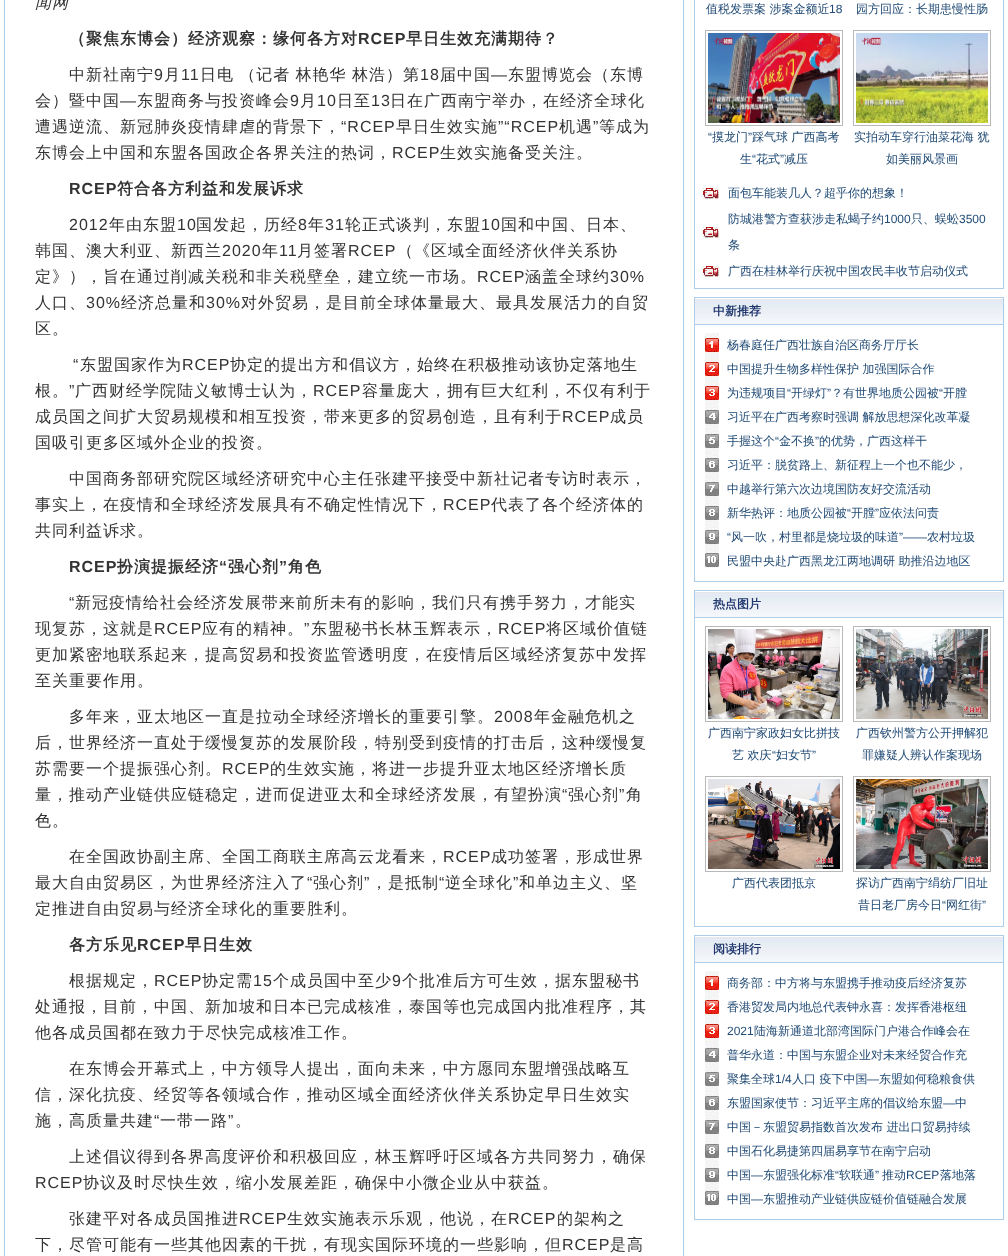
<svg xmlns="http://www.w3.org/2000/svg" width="1008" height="1256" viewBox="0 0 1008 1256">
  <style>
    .t1 { font: italic 500 16px WenQuanYi Zen Hei; letter-spacing: 1px; fill: #333; }
    .t2 { font: bold 16px WenQuanYi Zen Hei; letter-spacing: 1px; fill: #333; }
    .t3 { font: bold 16px Liberation Sans; letter-spacing: 1px; fill: #333; }
    .t4 { font: 500 16px WenQuanYi Zen Hei; letter-spacing: 1px; fill: #333; }
    .t5 { font: 16px Liberation Sans; letter-spacing: 1px; fill: #333; }
    .t6 { font: 500 12px WenQuanYi Zen Hei; fill: #214b75; }
    .t7 { font: 12px Liberation Sans; fill: #214b75; }
    .t8 { font: bold 12px WenQuanYi Zen Hei; fill: #1f376d; }
  </style>
  <rect width="100%" height="100%" fill="#fff"/>
  <rect x="4.5" y="-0.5" width="679" height="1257" fill="none" stroke="#adceea"/>
  <text x="35" y="8" class="t1">闻网</text>
  <text x="69" y="44" class="t2">（聚焦东博会）经济观察：缘何各方对</text>
  <text x="358" y="44" class="t3">RCEP</text>
  <text x="406" y="44" class="t2">早日生效充满期待？</text>
  <text x="69" y="80" class="t4">中新社南宁</text>
  <text x="154" y="80" class="t5">9</text>
  <text x="164" y="80" class="t4">月</text>
  <text x="181" y="80" class="t5">11</text>
  <text x="200" y="80" word-spacing="-0.5" class="t4">日电 （记者 林艳华 林浩）第</text>
  <text x="420" y="80" class="t5">18</text>
  <text x="440" y="80" class="t4">届中国</text>
  <text x="491" y="80" class="t5">—</text>
  <text x="508" y="80" class="t4">东盟博览会（东博</text>
  <text x="35" y="106" class="t4">会）暨中国</text>
  <text x="120" y="106" class="t5">—</text>
  <text x="137" y="106" class="t4">东盟商务与投资峰会</text>
  <text x="290" y="106" class="t5">9</text>
  <text x="300" y="106" class="t4">月</text>
  <text x="317" y="106" class="t5">10</text>
  <text x="337" y="106" class="t4">日至</text>
  <text x="371" y="106" class="t5">13</text>
  <text x="390" y="106" class="t4">日在广西南宁举办，在经济全球化</text>
  <text x="35" y="132" class="t4">遭遇逆流、新冠肺炎疫情肆虐的背景下，</text>
  <text x="341" y="132" class="t5">“RCEP</text>
  <text x="396" y="132" class="t4">早日生效实施</text>
  <text x="498" y="132" class="t5">”“RCEP</text>
  <text x="559" y="132" class="t4">机遇</text>
  <text x="593" y="132" class="t5">”</text>
  <text x="599" y="132" class="t4">等成为</text>
  <text x="35" y="158" class="t4">东博会上中国和东盟各国政企各界关注的热词，</text>
  <text x="392" y="158" class="t5">RCEP</text>
  <text x="440" y="158" class="t4">生效实施备受关注。</text>
  <text x="69" y="194" class="t3">RCEP</text>
  <text x="117" y="194" class="t2">符合各方利益和发展诉求</text>
  <text x="69" y="230" class="t5">2012</text>
  <text x="109" y="230" class="t4">年由东盟</text>
  <text x="177" y="230" class="t5">10</text>
  <text x="196" y="230" class="t4">国发起，历经</text>
  <text x="298" y="230" class="t5">8</text>
  <text x="308" y="230" class="t4">年</text>
  <text x="325" y="230" class="t5">31</text>
  <text x="345" y="230" class="t4">轮正式谈判，东盟</text>
  <text x="481" y="230" class="t5">10</text>
  <text x="501" y="230" class="t4">国和中国、日本、</text>
  <text x="35" y="256" class="t4">韩国、澳大利亚、新西兰</text>
  <text x="222" y="256" class="t5">2020</text>
  <text x="262" y="256" class="t4">年</text>
  <text x="279" y="256" class="t5">11</text>
  <text x="297" y="256" class="t4">月签署</text>
  <text x="348" y="256" class="t5">RCEP</text>
  <text x="397" y="256" class="t4">（《区域全面经济伙伴关系协</text>
  <text x="35" y="282" class="t4">定》），旨在通过削减关税和非关税壁垒，建立统一市场。</text>
  <text x="477" y="282" class="t5">RCEP</text>
  <text x="525" y="282" class="t4">涵盖全球约</text>
  <text x="610" y="282" class="t5">30%</text>
  <text x="35" y="308" class="t4">人口、</text>
  <text x="86" y="308" class="t5">30%</text>
  <text x="121" y="308" class="t4">经济总量和</text>
  <text x="206" y="308" class="t5">30%</text>
  <text x="241" y="308" class="t4">对外贸易，是目前全球体量最大、最具发展活力的自贸</text>
  <text x="35" y="334" class="t4">区。</text>
  <text x="73" y="370" class="t5">“</text>
  <text x="80" y="370" class="t4">东盟国家作为</text>
  <text x="182" y="370" class="t5">RCEP</text>
  <text x="230" y="370" class="t4">协定的提出方和倡议方，始终在积极推动该协定落地生</text>
  <text x="35" y="396" class="t4">根。</text>
  <text x="69" y="396" class="t5">”</text>
  <text x="75" y="396" class="t4">广西财经学院陆义敏博士认为，</text>
  <text x="313" y="396" class="t5">RCEP</text>
  <text x="362" y="396" class="t4">容量庞大，拥有巨大红利，不仅有利于</text>
  <text x="35" y="422" class="t4">成员国之间扩大贸易规模和相互投资，带来更多的贸易创造，且有利于</text>
  <text x="562" y="422" class="t5">RCEP</text>
  <text x="610" y="422" class="t4">成员</text>
  <text x="35" y="448" class="t4">国吸引更多区域外企业的投资。</text>
  <text x="69" y="484" class="t4">中国商务部研究院区域经济研究中心主任张建平接受中新社记者专访时表示，</text>
  <text x="35" y="510" class="t4">事实上，在疫情和全球经济发展具有不确定性情况下，</text>
  <text x="443" y="510" class="t5">RCEP</text>
  <text x="491" y="510" class="t4">代表了各个经济体的</text>
  <text x="35" y="536" class="t4">共同利益诉求。</text>
  <text x="69" y="572" class="t3">RCEP</text>
  <text x="117" y="572" class="t2">扮演提振经济</text>
  <text x="219" y="572" class="t3">“</text>
  <text x="228" y="572" class="t2">强心剂</text>
  <text x="279" y="572" class="t3">”</text>
  <text x="288" y="572" class="t2">角色</text>
  <text x="69" y="608" class="t5">“</text>
  <text x="75" y="608" class="t4">新冠疫情给社会经济发展带来前所未有的影响，我们只有携手努力，才能实</text>
  <text x="35" y="634" class="t4">现复苏，这就是</text>
  <text x="154" y="634" class="t5">RCEP</text>
  <text x="202" y="634" class="t4">应有的精神。</text>
  <text x="304" y="634" class="t5">”</text>
  <text x="311" y="634" class="t4">东盟秘书长林玉辉表示，</text>
  <text x="498" y="634" class="t5">RCEP</text>
  <text x="546" y="634" class="t4">将区域价值链</text>
  <text x="35" y="660" class="t4">更加紧密地联系起来，提高贸易和投资监管透明度，在疫情后区域经济复苏中发挥</text>
  <text x="35" y="686" class="t4">至关重要作用。</text>
  <text x="69" y="722" class="t4">多年来，亚太地区一直是拉动全球经济增长的重要引擎。</text>
  <text x="494" y="722" class="t5">2008</text>
  <text x="534" y="722" class="t4">年金融危机之</text>
  <text x="35" y="748" class="t4">后，世界经济一直处于缓慢复苏的发展阶段，特别受到疫情的打击后，这种缓慢复</text>
  <text x="35" y="774" class="t4">苏需要一个提振强心剂。</text>
  <text x="222" y="774" class="t5">RCEP</text>
  <text x="270" y="774" class="t4">的生效实施，将进一步提升亚太地区经济增长质</text>
  <text x="35" y="800" class="t4">量，推动产业链供应链稳定，进而促进亚太和全球经济发展，有望扮演</text>
  <text x="562" y="800" class="t5">“</text>
  <text x="568" y="800" class="t4">强心剂</text>
  <text x="619" y="800" class="t5">”</text>
  <text x="626" y="800" class="t4">角</text>
  <text x="35" y="826" class="t4">色。</text>
  <text x="69" y="862" class="t4">在全国政协副主席、全国工商联主席高云龙看来，</text>
  <text x="443" y="862" class="t5">RCEP</text>
  <text x="491" y="862" class="t4">成功签署，形成世界</text>
  <text x="35" y="888" class="t4">最大自由贸易区，为世界经济注入了</text>
  <text x="307" y="888" class="t5">“</text>
  <text x="313" y="888" class="t4">强心剂</text>
  <text x="364" y="888" class="t5">”</text>
  <text x="371" y="888" class="t4">，是抵制</text>
  <text x="439" y="888" class="t5">“</text>
  <text x="445" y="888" class="t4">逆全球化</text>
  <text x="513" y="888" class="t5">”</text>
  <text x="519" y="888" class="t4">和单边主义、坚</text>
  <text x="35" y="914" class="t4">定推进自由贸易与经济全球化的重要胜利。</text>
  <text x="69" y="950" class="t2">各方乐见</text>
  <text x="137" y="950" class="t3">RCEP</text>
  <text x="185" y="950" class="t2">早日生效</text>
  <text x="69" y="986" class="t4">根据规定，</text>
  <text x="154" y="986" class="t5">RCEP</text>
  <text x="202" y="986" class="t4">协定需</text>
  <text x="253" y="986" class="t5">15</text>
  <text x="273" y="986" class="t4">个成员国中至少</text>
  <text x="392" y="986" class="t5">9</text>
  <text x="402" y="986" class="t4">个批准后方可生效，据东盟秘书</text>
  <text x="35" y="1012" class="t4">处通报，目前，中国、新加坡和日本已完成核准，泰国等也完成国内批准程序，其</text>
  <text x="35" y="1038" class="t4">他各成员国都在致力于尽快完成核准工作。</text>
  <text x="69" y="1074" class="t4">在东博会开幕式上，中方领导人提出，面向未来，中方愿同东盟增强战略互</text>
  <text x="35" y="1100" class="t4">信，深化抗疫、经贸等各领域合作，推动区域全面经济伙伴关系协定早日生效实</text>
  <text x="35" y="1126" class="t4">施，高质量共建</text>
  <text x="154" y="1126" class="t5">“</text>
  <text x="160" y="1126" class="t4">一带一路</text>
  <text x="228" y="1126" class="t5">”</text>
  <text x="235" y="1126" class="t4">。</text>
  <text x="69" y="1162" class="t4">上述倡议得到各界高度评价和积极回应，林玉辉呼吁区域各方共同努力，确保</text>
  <text x="35" y="1188" class="t5">RCEP</text>
  <text x="83" y="1188" class="t4">协议及时尽快生效，缩小发展差距，确保中小微企业从中获益。</text>
  <text x="69" y="1224" class="t4">张建平对各成员国推进</text>
  <text x="239" y="1224" class="t5">RCEP</text>
  <text x="287" y="1224" class="t4">生效实施表示乐观，他说，在</text>
  <text x="508" y="1224" class="t5">RCEP</text>
  <text x="557" y="1224" class="t4">的架构之</text>
  <text x="35" y="1250" class="t4">下，尽管可能有一些其他因素的干扰，有现实国际环境的一些影响，但</text>
  <text x="562" y="1250" class="t5">RCEP</text>
  <text x="610" y="1250" class="t4">是高</text>
  <rect x="694.5" y="-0.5" width="309" height="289" fill="none" stroke="#adceea"/>
  <text x="706" y="13" class="t6">值税发票案 涉案金额近</text>
  <text x="829" y="13" class="t7">18</text>
  <text x="856" y="13" class="t6">园方回应：长期患慢性肠</text>
  <rect x="705.5" y="30.5" width="137" height="95" fill="none" stroke="#b8b8b8"/>
  <image x="708" y="33" width="132" height="90" href="images/1.png"/>
  <text x="708" y="141" class="t7">“</text>
  <text x="712" y="141" class="t6">摸龙门</text>
  <text x="748" y="141" class="t7">”</text>
  <text x="752" y="141" class="t6">踩气球 广西高考</text>
  <text x="740" y="163" class="t6">生</text>
  <text x="752" y="163" class="t7">“</text>
  <text x="756" y="163" class="t6">花式</text>
  <text x="780" y="163" class="t7">”</text>
  <text x="784" y="163" class="t6">减压</text>
  <rect x="853.5" y="30.5" width="137" height="95" fill="none" stroke="#b8b8b8"/>
  <image x="856" y="33" width="132" height="90" href="images/2.png"/>
  <text x="854" y="141" class="t6">实拍动车穿行油菜花海 犹</text>
  <text x="886" y="163" class="t6">如美丽风景画</text>
  <image x="703" y="188" width="16" height="11" href="images/3.png"/>
  <text x="728" y="197" class="t6">面包车能装几人？超乎你的想象！</text>
  <image x="703" y="227" width="16" height="11" href="images/3.png"/>
  <text x="728" y="223" class="t6">防城港警方查获涉走私蝎子约</text>
  <text x="884" y="223" class="t7">1000</text>
  <text x="911" y="223" class="t6">只、蜈蚣</text>
  <text x="959" y="223" class="t7">3500</text>
  <text x="728" y="249" class="t6">条</text>
  <image x="703" y="266" width="16" height="11" href="images/3.png"/>
  <text x="728" y="275" class="t6">广西在桂林举行庆祝中国农民丰收节启动仪式</text>
  <rect x="694.5" y="297.5" width="309" height="284" fill="none" stroke="#adceea"/>
  <image x="695" y="299" width="308" height="25" href="images/4.png"/>
  <rect x="695" y="324" width="308" height="1" fill="#adceea"/>
  <text x="713" y="315" class="t8">中新推荐</text>
  <image x="705" y="333" width="14" height="235" href="images/5.png"/>
  <text x="727" y="349" class="t6">杨春庭任广西壮族自治区商务厅厅长</text>
  <text x="727" y="373" class="t6">中国提升生物多样性保护 加强国际合作</text>
  <text x="727" y="397" class="t6">为违规项目</text>
  <text x="787" y="397" class="t7">“</text>
  <text x="791" y="397" class="t6">开绿灯</text>
  <text x="827" y="397" class="t7">”</text>
  <text x="831" y="397" class="t6">？有世界地质公园被</text>
  <text x="939" y="397" class="t7">“</text>
  <text x="943" y="397" class="t6">开膛</text>
  <text x="727" y="421" class="t6">习近平在广西考察时强调 解放思想深化改革凝</text>
  <text x="727" y="445" class="t6">手握这个</text>
  <text x="775" y="445" class="t7">“</text>
  <text x="779" y="445" class="t6">金不换</text>
  <text x="815" y="445" class="t7">”</text>
  <text x="819" y="445" class="t6">的优势，广西这样干</text>
  <text x="727" y="469" class="t6">习近平：脱贫路上、新征程上一个也不能少，</text>
  <text x="727" y="493" class="t6">中越举行第六次边境国防友好交流活动</text>
  <text x="727" y="517" class="t6">新华热评：地质公园被</text>
  <text x="847" y="517" class="t7">“</text>
  <text x="851" y="517" class="t6">开膛</text>
  <text x="875" y="517" class="t7">”</text>
  <text x="879" y="517" class="t6">应依法问责</text>
  <text x="727" y="541" class="t7">“</text>
  <text x="731" y="541" class="t6">风一吹，村里都是烧垃圾的味道</text>
  <text x="899" y="541" class="t7">”——</text>
  <text x="927" y="541" class="t6">农村垃圾</text>
  <text x="727" y="565" class="t6">民盟中央赴广西黑龙江两地调研 助推沿边地区</text>
  <rect x="694.5" y="590.5" width="309" height="336" fill="none" stroke="#adceea"/>
  <image x="695" y="592" width="308" height="25" href="images/4.png"/>
  <rect x="695" y="617" width="308" height="1" fill="#adceea"/>
  <text x="713" y="608" class="t8">热点图片</text>
  <rect x="705.5" y="626.5" width="137" height="95" fill="none" stroke="#b8b8b8"/>
  <image x="708" y="629" width="132" height="90" href="images/6.png"/>
  <text x="708" y="737" class="t6">广西南宁家政妇女比拼技</text>
  <text x="732" y="759" class="t6">艺 欢庆</text>
  <text x="772" y="759" class="t7">“</text>
  <text x="776" y="759" class="t6">妇女节</text>
  <text x="812" y="759" class="t7">”</text>
  <rect x="853.5" y="626.5" width="137" height="95" fill="none" stroke="#b8b8b8"/>
  <image x="856" y="629" width="132" height="90" href="images/7.png"/>
  <text x="856" y="737" class="t6">广西钦州警方公开押解犯</text>
  <text x="862" y="759" class="t6">罪嫌疑人辨认作案现场</text>
  <rect x="705.5" y="776.5" width="137" height="95" fill="none" stroke="#b8b8b8"/>
  <image x="708" y="779" width="132" height="90" href="images/8.png"/>
  <text x="732" y="887" class="t6">广西代表团抵京</text>
  <rect x="853.5" y="776.5" width="137" height="95" fill="none" stroke="#b8b8b8"/>
  <image x="856" y="779" width="132" height="90" href="images/9.png"/>
  <text x="856" y="887" class="t6">探访广西南宁绢纺厂旧址</text>
  <text x="858" y="909" class="t6">昔日老厂房今日</text>
  <text x="942" y="909" class="t7">“</text>
  <text x="946" y="909" class="t6">网红街</text>
  <text x="982" y="909" class="t7">”</text>
  <rect x="694.5" y="935.5" width="309" height="284" fill="none" stroke="#adceea"/>
  <image x="695" y="937" width="308" height="25" href="images/4.png"/>
  <rect x="695" y="962" width="308" height="1" fill="#adceea"/>
  <text x="713" y="953" class="t8">阅读排行</text>
  <image x="705" y="971" width="14" height="235" href="images/5.png"/>
  <text x="727" y="987" class="t6">商务部：中方将与东盟携手推动疫后经济复苏</text>
  <text x="727" y="1011" class="t6">香港贸发局内地总代表钟永喜：发挥香港枢纽</text>
  <text x="727" y="1035" class="t7">2021</text>
  <text x="754" y="1035" class="t6">陆海新通道北部湾国际门户港合作峰会在</text>
  <text x="727" y="1059" class="t6">普华永道：中国与东盟企业对未来经贸合作充</text>
  <text x="727" y="1083" class="t6">聚集全球</text>
  <text x="775" y="1083" class="t7">1/4</text>
  <text x="792" y="1083" class="t6">人口 疫下中国</text>
  <text x="867" y="1083" class="t7">—</text>
  <text x="879" y="1083" class="t6">东盟如何稳粮食供</text>
  <text x="727" y="1107" class="t6">东盟国家使节：习近平主席的倡议给东盟</text>
  <text x="943" y="1107" class="t7">—</text>
  <text x="955" y="1107" class="t6">中</text>
  <text x="727" y="1131" class="t6">中国－东盟贸易指数首次发布 进出口贸易持续</text>
  <text x="727" y="1155" class="t6">中国石化易捷第四届易享节在南宁启动</text>
  <text x="727" y="1179" class="t6">中国</text>
  <text x="751" y="1179" class="t7">—</text>
  <text x="763" y="1179" class="t6">东盟强化标准</text>
  <text x="835" y="1179" class="t7">“</text>
  <text x="839" y="1179" class="t6">软联通</text>
  <text x="875" y="1179" class="t7">”</text>
  <text x="882" y="1179" class="t6">推动</text>
  <text x="906" y="1179" class="t7">RCEP</text>
  <text x="940" y="1179" class="t6">落地落</text>
  <text x="727" y="1203" class="t6">中国</text>
  <text x="751" y="1203" class="t7">—</text>
  <text x="763" y="1203" class="t6">东盟推动产业链供应链价值链融合发展</text>
</svg>
